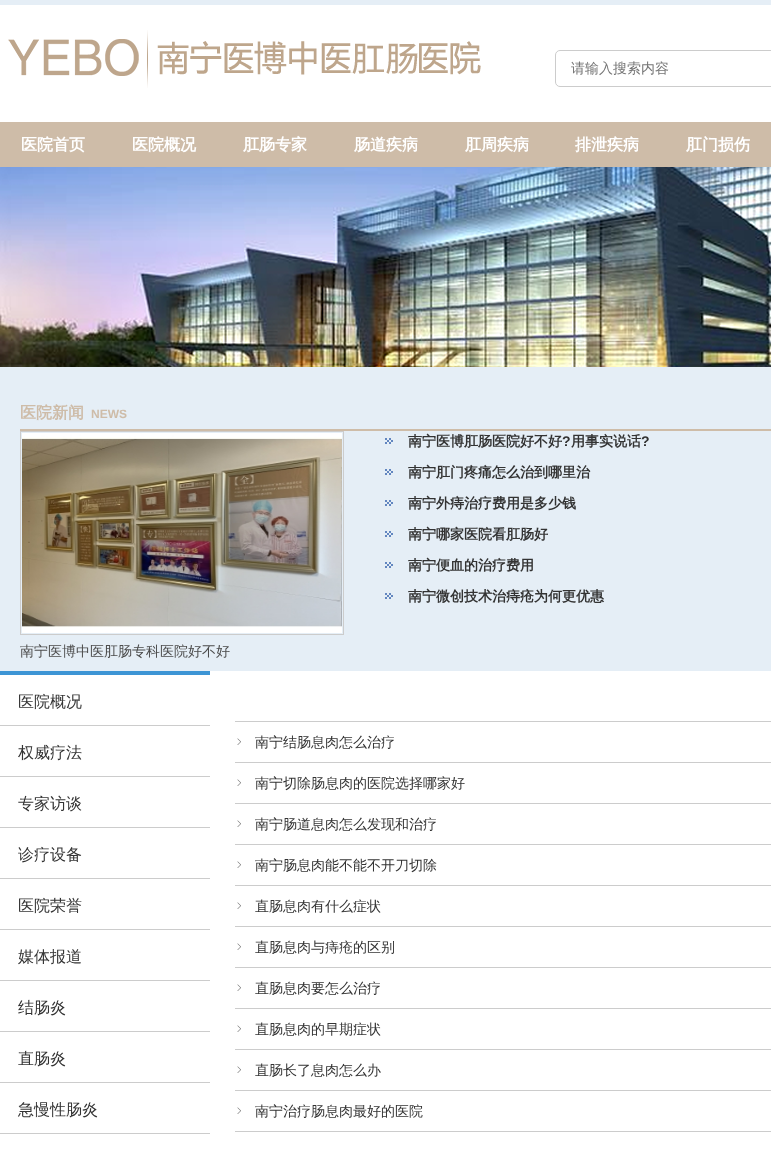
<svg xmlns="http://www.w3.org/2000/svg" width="771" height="1159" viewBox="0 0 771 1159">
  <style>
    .t1 { font: 500 14px WenQuanYi Zen Hei; fill: #757575; }
    .t2 { font: bold 16px WenQuanYi Zen Hei; fill: #fff; }
    .t3 { font: bold 16px WenQuanYi Zen Hei; fill: #cebca8; }
    .t4 { font: bold 12px Liberation Sans; fill: #cebca8; }
    .t5 { font: bold 14px WenQuanYi Zen Hei; fill: #333; }
    .t6 { font: bold 14px Liberation Sans; fill: #333; }
    .t7 { font: 500 14px WenQuanYi Zen Hei; fill: #4c4c4c; }
    .t8 { font: 500 16px WenQuanYi Zen Hei; fill: #333; }
    .t9 { font: 500 14px WenQuanYi Zen Hei; fill: #333; }
  </style>
  <rect width="100%" height="100%" fill="#e5eef6"/>
  <rect x="0" y="5" width="771" height="117" fill="#fff"/>
  <image x="8" y="30" width="473" height="58" href="images/1.png"/>
  <rect x="555.5" y="50.5" width="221" height="36" rx="4.5" fill="none" stroke="#ccc"/>
  <text x="571" y="73" class="t1">请输入搜索内容</text>
  <rect x="0" y="122" width="771" height="45" fill="#cebca8"/>
  <text x="21" y="150" class="t2">医院首页</text>
  <text x="132" y="150" class="t2">医院概况</text>
  <text x="243" y="150" class="t2">肛肠专家</text>
  <text x="354" y="150" class="t2">肠道疾病</text>
  <text x="465" y="150" class="t2">肛周疾病</text>
  <text x="575" y="150" class="t2">排泄疾病</text>
  <text x="686" y="150" class="t2">肛门损伤</text>
  <image x="0" y="167" width="771" height="200" href="images/2.png"/>
  <rect x="20" y="429" width="751" height="2" fill="#cebca8"/>
  <text x="20" y="418" class="t3">医院新闻</text>
  <text x="91" y="418" class="t4">NEWS</text>
  <image x="385" y="438" width="8" height="6" href="images/3.png"/>
  <text x="408" y="446" class="t5">南宁医博肛肠医院好不好</text>
  <text x="562" y="446" class="t6">?</text>
  <text x="571" y="446" class="t5">用事实说话</text>
  <text x="641" y="446" class="t6">?</text>
  <image x="385" y="469" width="8" height="6" href="images/3.png"/>
  <text x="408" y="477" class="t5">南宁肛门疼痛怎么治到哪里治</text>
  <image x="385" y="500" width="8" height="6" href="images/3.png"/>
  <text x="408" y="508" class="t5">南宁外痔治疗费用是多少钱</text>
  <image x="385" y="531" width="8" height="6" href="images/3.png"/>
  <text x="408" y="539" class="t5">南宁哪家医院看肛肠好</text>
  <image x="385" y="562" width="8" height="6" href="images/3.png"/>
  <text x="408" y="570" class="t5">南宁便血的治疗费用</text>
  <image x="385" y="593" width="8" height="6" href="images/3.png"/>
  <text x="408" y="601" class="t5">南宁微创技术治痔疮为何更优惠</text>
  <rect x="20.5" y="431.5" width="323" height="203" fill="none" stroke="#ccc"/>
  <image x="22" y="433" width="320" height="200" href="images/4.png"/>
  <text x="20" y="656" class="t7">南宁医博中医肛肠专科医院好不好</text>
  <rect x="0" y="671" width="771" height="488" fill="#fff"/>
  <rect x="0" y="671" width="210" height="4" fill="#3d95d5"/>
  <rect x="0" y="725" width="210" height="1" fill="#ccc"/>
  <text x="18" y="707" class="t8">医院概况</text>
  <rect x="0" y="776" width="210" height="1" fill="#ccc"/>
  <text x="18" y="758" class="t8">权威疗法</text>
  <rect x="0" y="827" width="210" height="1" fill="#ccc"/>
  <text x="18" y="809" class="t8">专家访谈</text>
  <rect x="0" y="878" width="210" height="1" fill="#ccc"/>
  <text x="18" y="860" class="t8">诊疗设备</text>
  <rect x="0" y="929" width="210" height="1" fill="#ccc"/>
  <text x="18" y="911" class="t8">医院荣誉</text>
  <rect x="0" y="980" width="210" height="1" fill="#ccc"/>
  <text x="18" y="962" class="t8">媒体报道</text>
  <rect x="0" y="1031" width="210" height="1" fill="#ccc"/>
  <text x="18" y="1013" class="t8">结肠炎</text>
  <rect x="0" y="1082" width="210" height="1" fill="#ccc"/>
  <text x="18" y="1064" class="t8">直肠炎</text>
  <rect x="0" y="1133" width="210" height="1" fill="#ccc"/>
  <text x="18" y="1115" class="t8">急慢性肠炎</text>
  <rect x="235" y="721" width="536" height="1" fill="#ccc"/>
  <rect x="235" y="762" width="536" height="1" fill="#ccc"/>
  <image x="237" y="738" width="4" height="7" href="images/5.png"/>
  <text x="255" y="747" class="t9">南宁结肠息肉怎么治疗</text>
  <rect x="235" y="803" width="536" height="1" fill="#ccc"/>
  <image x="237" y="779" width="4" height="7" href="images/5.png"/>
  <text x="255" y="788" class="t9">南宁切除肠息肉的医院选择哪家好</text>
  <rect x="235" y="844" width="536" height="1" fill="#ccc"/>
  <image x="237" y="820" width="4" height="7" href="images/5.png"/>
  <text x="255" y="829" class="t9">南宁肠道息肉怎么发现和治疗</text>
  <rect x="235" y="885" width="536" height="1" fill="#ccc"/>
  <image x="237" y="861" width="4" height="7" href="images/5.png"/>
  <text x="255" y="870" class="t9">南宁肠息肉能不能不开刀切除</text>
  <rect x="235" y="926" width="536" height="1" fill="#ccc"/>
  <image x="237" y="902" width="4" height="7" href="images/5.png"/>
  <text x="255" y="911" class="t9">直肠息肉有什么症状</text>
  <rect x="235" y="967" width="536" height="1" fill="#ccc"/>
  <image x="237" y="943" width="4" height="7" href="images/5.png"/>
  <text x="255" y="952" class="t9">直肠息肉与痔疮的区别</text>
  <rect x="235" y="1008" width="536" height="1" fill="#ccc"/>
  <image x="237" y="984" width="4" height="7" href="images/5.png"/>
  <text x="255" y="993" class="t9">直肠息肉要怎么治疗</text>
  <rect x="235" y="1049" width="536" height="1" fill="#ccc"/>
  <image x="237" y="1025" width="4" height="7" href="images/5.png"/>
  <text x="255" y="1034" class="t9">直肠息肉的早期症状</text>
  <rect x="235" y="1090" width="536" height="1" fill="#ccc"/>
  <image x="237" y="1066" width="4" height="7" href="images/5.png"/>
  <text x="255" y="1075" class="t9">直肠长了息肉怎么办</text>
  <rect x="235" y="1131" width="536" height="1" fill="#ccc"/>
  <image x="237" y="1107" width="4" height="7" href="images/5.png"/>
  <text x="255" y="1116" class="t9">南宁治疗肠息肉最好的医院</text>
</svg>
